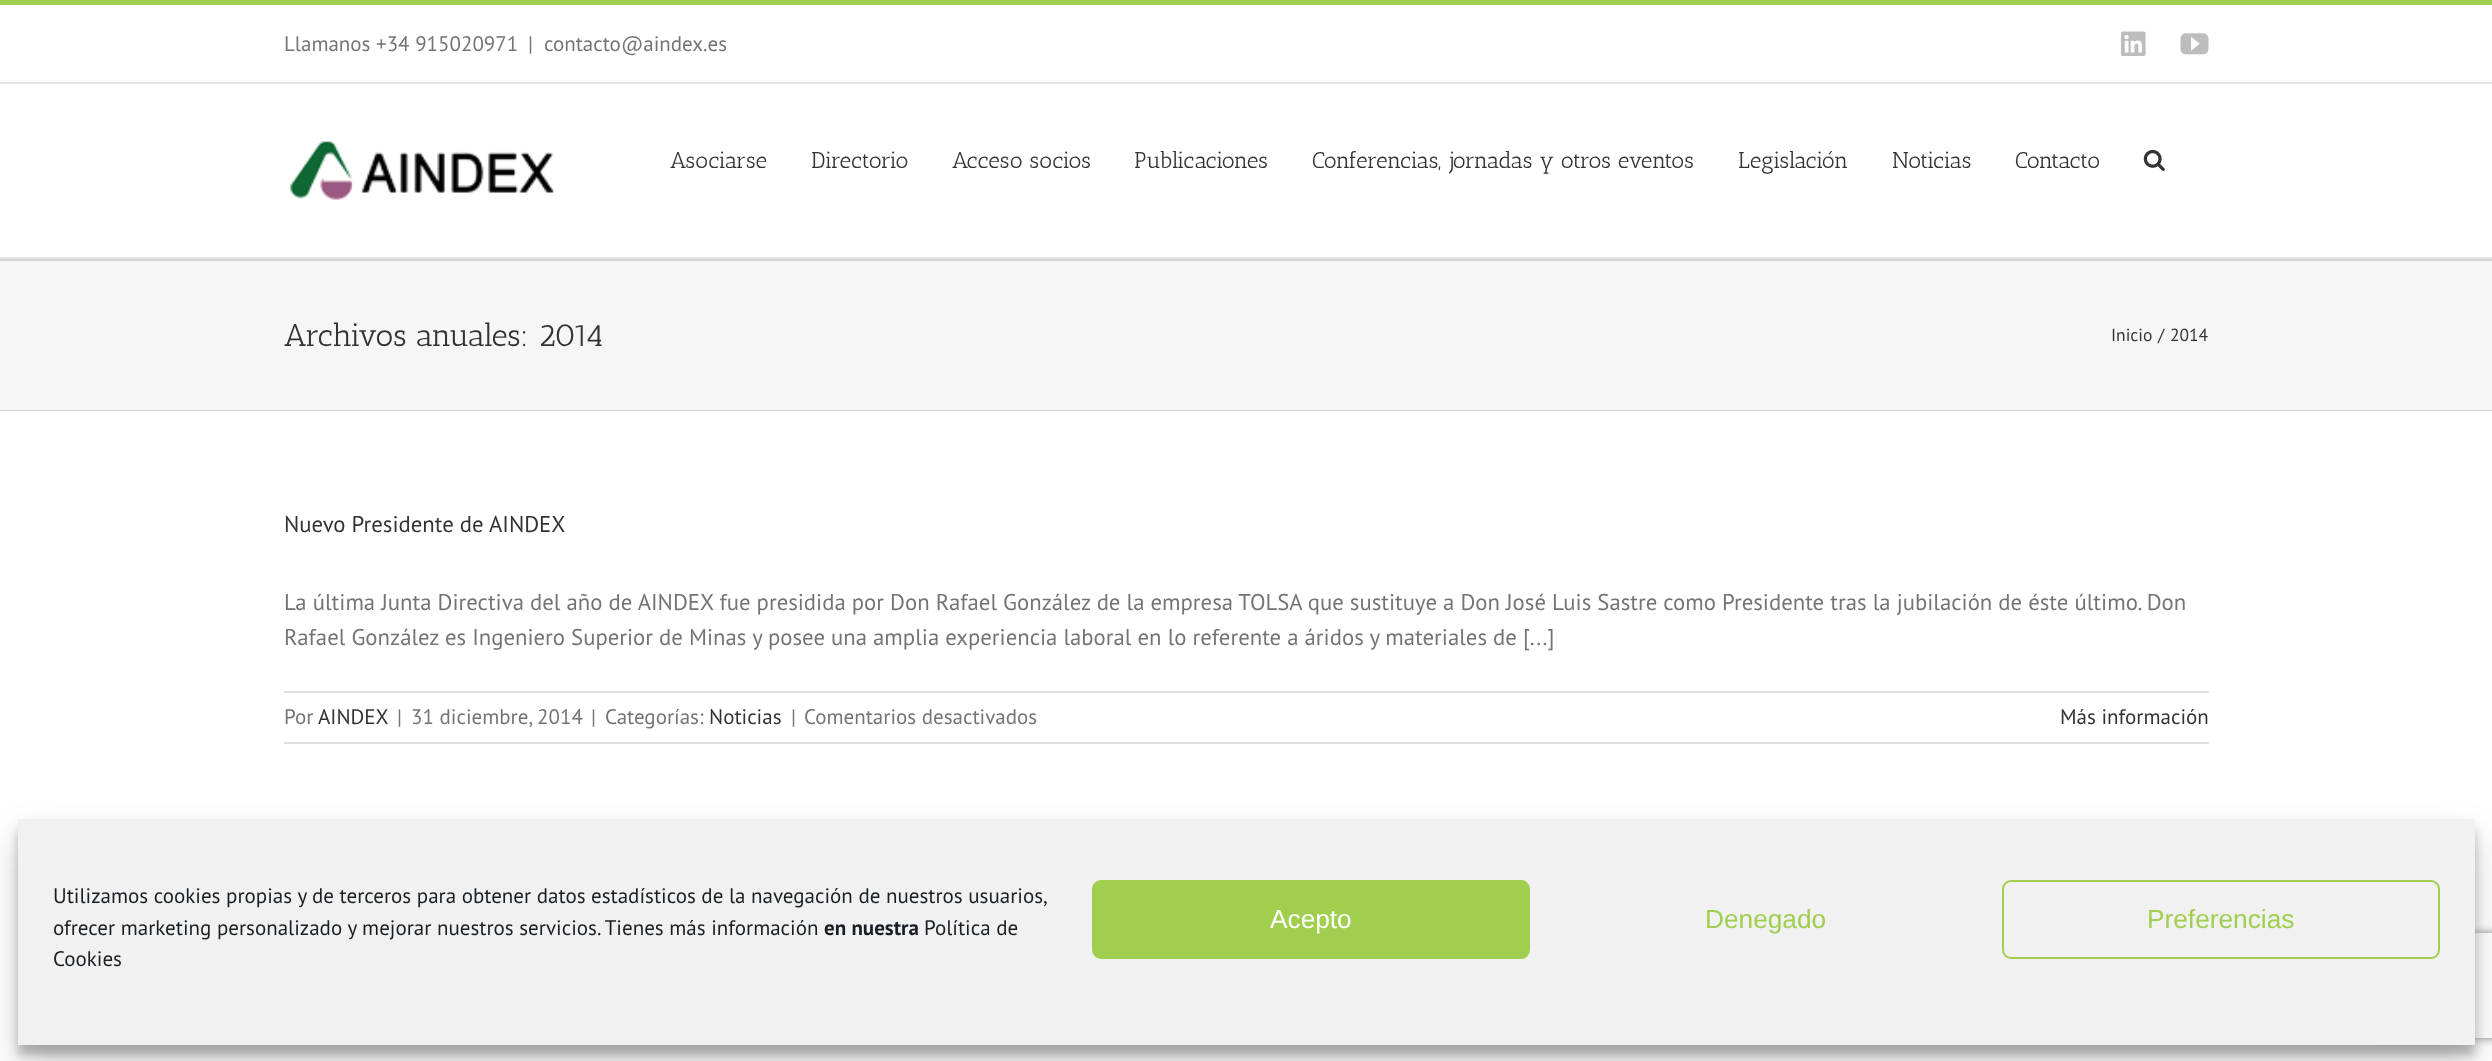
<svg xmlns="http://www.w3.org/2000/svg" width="2492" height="1061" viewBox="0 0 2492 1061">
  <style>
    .t1 { font: 21px PT Sans; fill: #747474; }
    .t2 { font: 22.75px Antic Slab; fill: #333; }
    .t3 { font: 31.5px Antic Slab; fill: #333; }
    .t4 { font: 17.5px PT Sans; fill: #333; }
    .t5 { font: 22.75px PT Sans; fill: #333; }
    .t6 { font: 22.75px PT Sans; fill: #747474; }
    .t7 { font: 21px PT Sans; fill: #333; }
    .t8 { font: 21px PT Sans; fill: #191e23; }
    .t9 { font: bold 21px PT Sans; fill: #191e23; }
    .t10 { font: 26.25px Liberation Sans; fill: #fff; }
    .t11 { font: 26.25px Liberation Sans; fill: #a0ce4e; }
  </style>
  <defs>
    <clipPath id="clip1"><path d="M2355 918H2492V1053H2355ZM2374 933H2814C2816 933 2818 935 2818 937V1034C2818 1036 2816 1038 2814 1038H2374C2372 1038 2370 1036 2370 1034V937C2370 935 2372 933 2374 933Z" clip-rule="evenodd"/></clipPath>
  </defs>
  <rect width="100%" height="100%" fill="#fff"/>
  <rect x="0" y="0" width="2492" height="5" fill="#a0ce4e"/>
  <rect x="0" y="82" width="2492" height="2" fill="#e5e5e5"/>
  <text x="284" y="51" class="t1">Llamanos +34 915020971</text>
  <text x="528" y="51" class="t1">|</text>
  <text x="544" y="51" class="t1">contacto@aindex.es</text>
  <image x="2121" y="31" width="25" height="25" href="images/1.png"/>
  <image x="2180" y="33" width="29" height="22" href="images/2.png"/>
  <rect x="0" y="257" width="2492" height="2" fill="#e5e5e5"/>
  <image x="290" y="141" width="264" height="59" href="images/3.png"/>
  <text x="670" y="168" class="t2">Asociarse</text>
  <text x="811" y="168" class="t2">Directorio</text>
  <text x="952" y="168" class="t2">Acceso socios</text>
  <text x="1134" y="168" class="t2">Publicaciones</text>
  <text x="1312" y="168" class="t2">Conferencias, jornadas y otros eventos</text>
  <text x="1738" y="168" class="t2">Legislación</text>
  <text x="1892" y="168" class="t2">Noticias</text>
  <text x="2015" y="168" class="t2">Contacto</text>
  <image x="2143" y="149" width="22" height="22" href="images/4.png"/>
  <rect x="0" y="261" width="2492" height="149" fill="#f6f6f6"/>
  <rect x="0" y="259" width="2492" height="2" fill="#d2d3d4"/>
  <rect x="0" y="410" width="2492" height="1" fill="#d2d3d4"/>
  <text x="284" y="346" class="t3">Archivos anuales: 2014</text>
  <text x="2111" y="341" class="t4">Inicio</text>
  <text x="2158" y="341" class="t4">/</text>
  <text x="2170" y="341" class="t4">2014</text>
  <text x="284" y="532" class="t5">Nuevo Presidente de AINDEX</text>
  <text x="284" y="610" class="t6">La última Junta Directiva del año de AINDEX fue presidida por Don Rafael González de la empresa TOLSA que sustituye a Don José Luis Sastre como Presidente tras la jubilación de éste último. Don</text>
  <text x="284" y="645" class="t6">Rafael González es Ingeniero Superior de Minas y posee una amplia experiencia laboral en lo referente a áridos y materiales de [...]</text>
  <rect x="284" y="691" width="1925" height="2" fill="#e0dede"/>
  <rect x="284" y="742" width="1925" height="2" fill="#e0dede"/>
  <text x="284" y="724" class="t1">Por</text>
  <text x="318" y="724" class="t7">AINDEX</text>
  <text x="397" y="724" class="t1">|</text>
  <text x="411" y="724" class="t1">31 diciembre, 2014</text>
  <text x="591" y="724" class="t1">|</text>
  <text x="605" y="724" class="t1">Categorías:</text>
  <text x="709" y="724" class="t7">Noticias</text>
  <text x="791" y="724" class="t1">|</text>
  <text x="804" y="724" class="t1">Comentarios desactivados</text>
  <text x="2060" y="724" class="t7">Más información</text>
  <rect x="18" y="830" width="2457" height="225" fill="#0000003b" filter="blur(5px)"/>
  <rect x="18" y="837" width="2457" height="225" fill="#00000030" filter="blur(17.5px)"/>
  <g clip-path="url(#clip1)">
    <rect x="2370" y="933" width="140" height="105" rx="4" fill="#808080" filter="blur(4.5px)"/>
  </g>
  <rect x="18" y="819" width="2457" height="226" fill="#f1f1f1"/>
  <text x="53" y="903" class="t8">Utilizamos cookies propias y de terceros para obtener datos estadísticos de la navegación de nuestros usuarios,</text>
  <text x="53" y="935" class="t8">ofrecer marketing personalizado y mejorar nuestros servicios. Tienes más información</text>
  <text x="824" y="935" class="t9">en nuestra</text>
  <text x="924" y="935" class="t8">Política de</text>
  <text x="53" y="966" class="t8">Cookies</text>
  <rect x="1093" y="881" width="436" height="77" rx="8" fill="#a0ce4e" stroke="#a0ce4e" stroke-width="2"/>
  <text x="1270" y="928" class="t10">Acepto</text>
  <text x="1705" y="928" class="t11">Denegado</text>
  <rect x="2003" y="881" width="436" height="77" rx="8" fill="none" stroke="#a0ce4e" stroke-width="2"/>
  <text x="2147" y="928" class="t11">Preferencias</text>
</svg>
